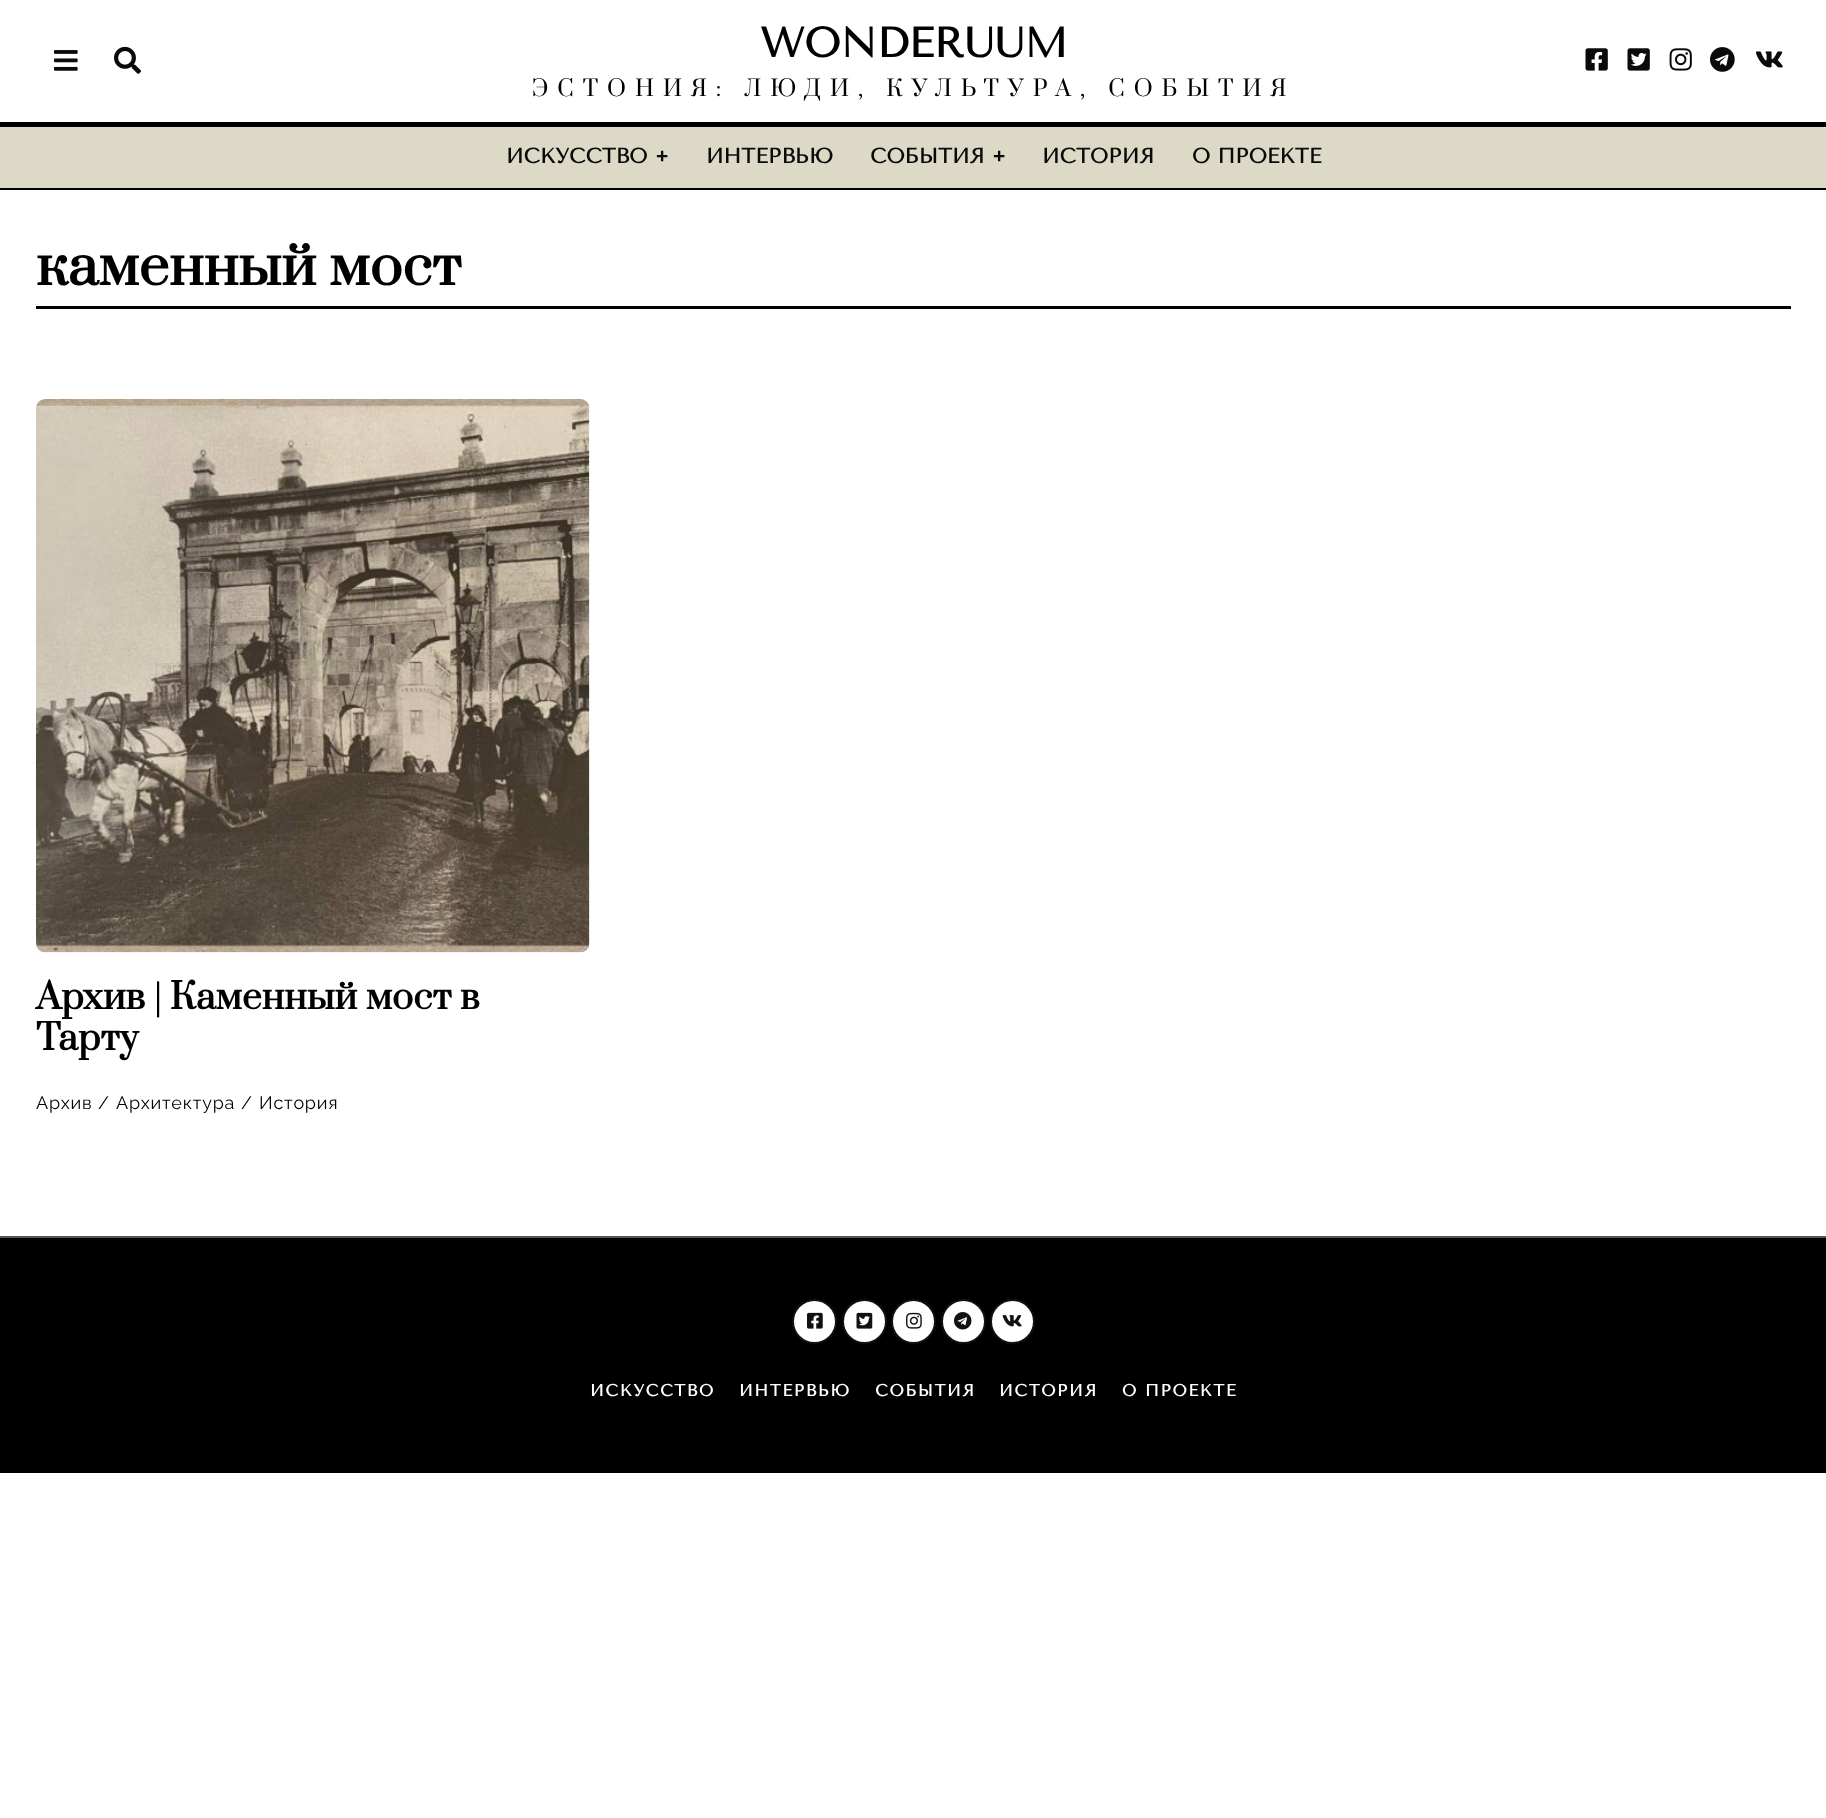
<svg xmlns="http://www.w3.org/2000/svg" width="1826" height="1818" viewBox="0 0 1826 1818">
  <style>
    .t1 { font: bold 42px Tenor Sans; fill: #000; }
    .t2 { font: 21.95px Prata; letter-spacing: 9px; fill: #000; }
    .t3 { font: bold 21px Tenor Sans; fill: #0a0a0a; }
    .t4 { font: bold 21px Liberation Sans; fill: #0a0a0a; }
    .t5 { font: bold 54px Prata; fill: #000; }
    .t6 { font: bold 35.1px Prata; fill: #000; }
    .t7 { font: 100 18px Raleway; letter-spacing: 0.75px; fill: #000; }
    .t8 { font: bold 16.5px Tenor Sans; letter-spacing: 1.5px; fill: #fff; }
  </style>
  <rect width="100%" height="100%" fill="#fff"/>
  <image x="54" y="50" width="24" height="21" href="images/1.png"/>
  <image x="114" y="46" width="27" height="28" href="images/2.png"/>
  <text x="760" y="57" class="t1">WONDERUUM</text>
  <text x="532" y="96" class="t2">ЭСТОНИЯ: ЛЮДИ, КУЛЬТУРА, СОБЫТИЯ</text>
  <image x="1585" y="48" width="23" height="23" href="images/3.png"/>
  <image x="1627" y="48" width="23" height="23" href="images/4.png"/>
  <image x="1669" y="48" width="23" height="23" href="images/5.png"/>
  <image x="1710" y="47" width="25" height="25" href="images/6.png"/>
  <image x="1756" y="51" width="27" height="17" href="images/7.png"/>
  <rect x="0" y="127" width="1826" height="61" fill="#ddd9c7"/>
  <rect x="0" y="122" width="1826" height="5" fill="#000"/>
  <rect x="0" y="188" width="1826" height="2" fill="#000"/>
  <text x="506" y="163" class="t3">ИСКУССТВО</text>
  <text x="656" y="163" class="t4">+</text>
  <text x="706" y="163" class="t3">ИНТЕРВЬЮ</text>
  <text x="870" y="163" class="t3">СОБЫТИЯ</text>
  <text x="993" y="163" class="t4">+</text>
  <text x="1042" y="163" class="t3">ИСТОРИЯ</text>
  <text x="1192" y="163" class="t3">О ПРОЕКТЕ</text>
  <rect x="36" y="306" width="1755" height="3" fill="#000"/>
  <text x="36" y="285" class="t5">каменный мост</text>
  <image x="36" y="399" width="554" height="554" href="images/8.png"/>
  <text x="36" y="1009" class="t6">Архив | Каменный мост в</text>
  <text x="36" y="1050" class="t6">Тарту</text>
  <text x="36" y="1109" class="t7">Архив</text>
  <text x="98" y="1109" class="t7">/</text>
  <text x="116" y="1109" class="t7">Архитектура</text>
  <text x="241" y="1109" class="t7">/</text>
  <text x="259" y="1109" class="t7">История</text>
  <rect x="0" y="1238" width="1826" height="235" fill="#000"/>
  <rect x="0" y="1236" width="1826" height="2" fill="#555"/>
  <circle cx="814.5" cy="1321.5" r="21.5" fill="#fff" stroke="#111" stroke-width="2"/>
  <image x="807" y="1312" width="16" height="17" href="images/9.png"/>
  <circle cx="864.5" cy="1321.5" r="21.5" fill="#fff" stroke="#111" stroke-width="2"/>
  <image x="856" y="1312" width="17" height="17" href="images/10.png"/>
  <circle cx="913.5" cy="1321.5" r="21.5" fill="#fff" stroke="#111" stroke-width="2"/>
  <image x="906" y="1312" width="16" height="17" href="images/11.png"/>
  <circle cx="963.5" cy="1321.5" r="21.5" fill="#fff" stroke="#111" stroke-width="2"/>
  <image x="954" y="1312" width="18" height="18" href="images/12.png"/>
  <circle cx="1012.5" cy="1321.5" r="21.5" fill="#fff" stroke="#111" stroke-width="2"/>
  <image x="1002" y="1315" width="20" height="12" href="images/13.png"/>
  <text x="590" y="1396" class="t8">ИСКУССТВО</text>
  <text x="739" y="1396" class="t8">ИНТЕРВЬЮ</text>
  <text x="875" y="1396" class="t8">СОБЫТИЯ</text>
  <text x="999" y="1396" class="t8">ИСТОРИЯ</text>
  <text x="1122" y="1396" class="t8">О ПРОЕКТЕ</text>
</svg>
